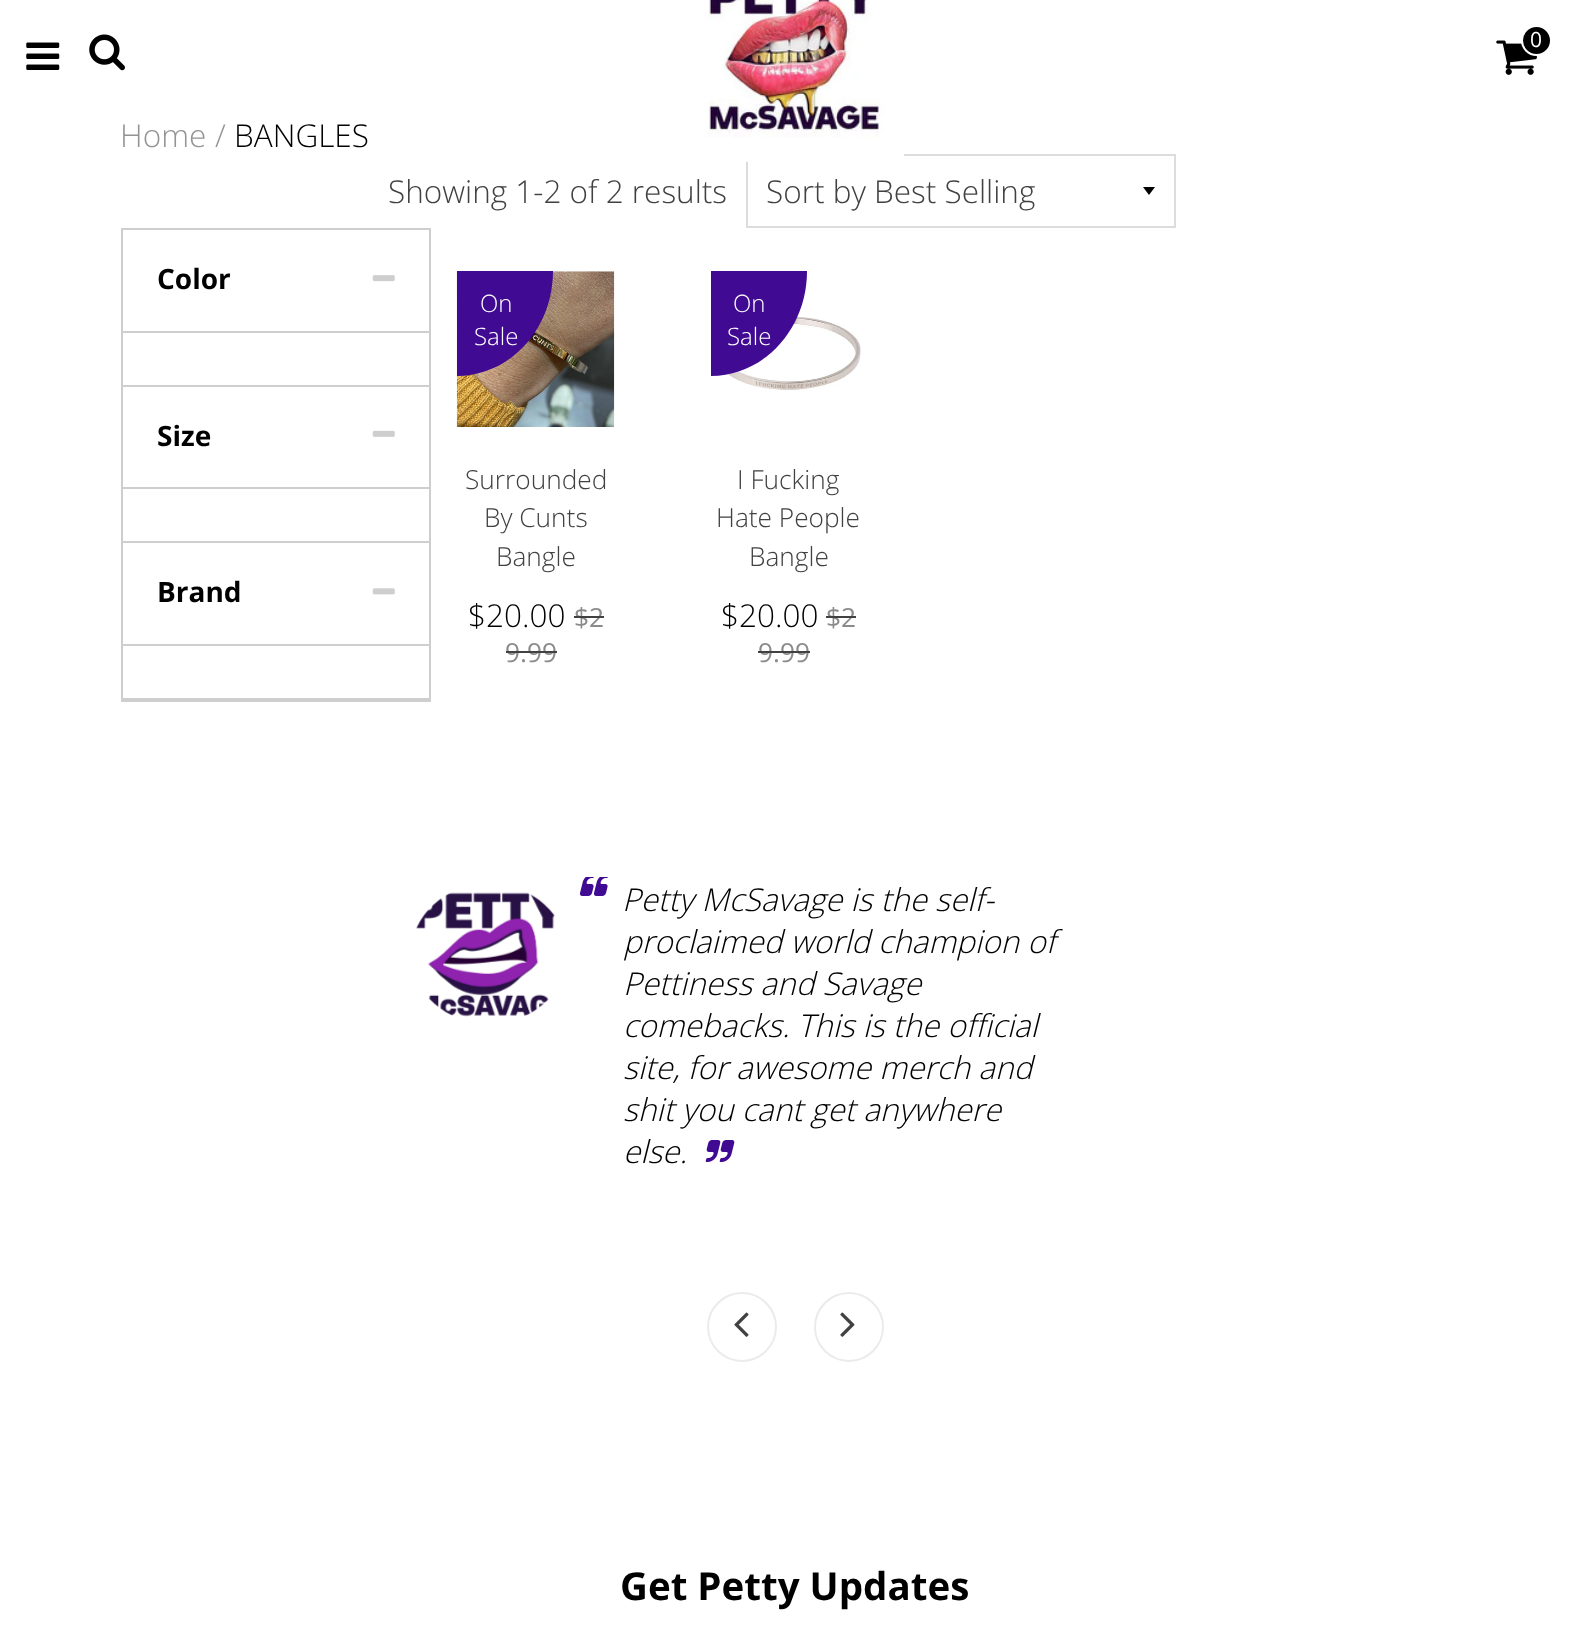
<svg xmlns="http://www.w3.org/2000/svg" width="1588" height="1648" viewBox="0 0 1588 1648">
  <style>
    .t1 { font: 21px Open Sans; fill: #fff; }
    .t2 { font: 300 31.5px Open Sans; fill: #949494; }
    .t3 { font: 300 31.5px Open Sans; fill: #000; }
    .t4 { font: 300 31.5px Open Sans; fill: #414141; }
    .t5 { font: bold 28px Open Sans; fill: #000; }
    .t6 { font: 300 24px Open Sans; fill: #fff; }
    .t7 { font: 300 26.25px Open Sans; fill: #414141; }
    .t8 { font: 26.25px Open Sans; fill: #8b8b8b; }
    .t9 { font: italic 300 31.5px Open Sans; fill: #000; }
    .t10 { font: bold 38.5px Open Sans; fill: #000; }
  </style>
  <defs>
    <clipPath id="clip1"><rect x="711" y="271" width="155" height="156"/></clipPath>
  </defs>
  <rect width="100%" height="100%" fill="#fff"/>
  <image x="26" y="42" width="34" height="28" href="images/1.png"/>
  <image x="89" y="34" width="36" height="37" href="images/2.png"/>
  <path d="M1143 187L1149 195L1155 187Z" fill="#000"/>
  <rect x="747" y="155" width="428" height="72" fill="none" stroke="#dddcdc" stroke-width="2"/>
  <image x="705" y="0" width="199" height="162" href="images/3.png"/>
  <image x="1496" y="40" width="41" height="35" href="images/4.png"/>
  <circle cx="1536.5" cy="40.5" r="14.5" fill="#000" stroke="#fff" stroke-width="2"/>
  <text x="1530" y="47" class="t1">0</text>
  <text x="120" y="147" class="t2">Home</text>
  <text x="215" y="147" class="t2">/</text>
  <text x="234" y="147" class="t3">BANGLES</text>
  <text x="388" y="203" class="t4">Showing 1-2 of 2 results</text>
  <text x="766" y="203" class="t4">Sort by Best Selling</text>
  <rect x="122" y="229" width="308" height="472" fill="none" stroke="#cecece" stroke-width="2"/>
  <rect x="123" y="331" width="306" height="2" fill="#cecece"/>
  <text x="157" y="289" class="t5">Color</text>
  <image x="372" y="275" width="23" height="7" href="images/5.png"/>
  <rect x="123" y="385" width="306" height="2" fill="#cecece"/>
  <rect x="123" y="487" width="306" height="2" fill="#cecece"/>
  <text x="157" y="446" class="t5">Size</text>
  <image x="372" y="430" width="23" height="7" href="images/6.png"/>
  <rect x="123" y="541" width="306" height="2" fill="#cecece"/>
  <rect x="123" y="644" width="306" height="2" fill="#cecece"/>
  <text x="157" y="602" class="t5">Brand</text>
  <image x="372" y="588" width="23" height="7" href="images/7.png"/>
  <rect x="123" y="698" width="306" height="2" fill="#cecece"/>
  <image x="456" y="271" width="159" height="156" href="images/8.png"/>
  <path d="M457 271H553C553 329 510 376 457 376Z" fill="#400a92"/>
  <text x="480" y="312" class="t6">On</text>
  <text x="474" y="345" class="t6">Sale</text>
  <text x="465" y="489" class="t7">Surrounded</text>
  <text x="484" y="527" class="t7">By Cunts</text>
  <text x="496" y="566" class="t7">Bangle</text>
  <text x="468" y="627" class="t3">$20.00</text>
  <text x="574" y="627" class="t8">$2</text>
  <rect x="574" y="616" width="30" height="2" fill="#414141"/>
  <text x="505" y="662" class="t8">9.99</text>
  <rect x="506" y="651" width="51" height="2" fill="#414141"/>
  <image x="716" y="316" width="145" height="75" href="images/9.png"/>
  <g clip-path="url(#clip1)">
    <path d="M710 271H807C807 329 764 376 710 376Z" fill="#400a92"/>
  </g>
  <text x="733" y="312" class="t6">On</text>
  <text x="727" y="345" class="t6">Sale</text>
  <text x="737" y="489" class="t7">I Fucking</text>
  <text x="716" y="527" class="t7">Hate People</text>
  <text x="749" y="566" class="t7">Bangle</text>
  <text x="721" y="627" class="t3">$20.00</text>
  <text x="826" y="627" class="t8">$2</text>
  <rect x="826" y="616" width="30" height="2" fill="#414141"/>
  <text x="758" y="662" class="t8">9.99</text>
  <rect x="758" y="651" width="52" height="2" fill="#414141"/>
  <image x="416" y="892" width="139" height="125" href="images/10.png"/>
  <image x="579" y="877" width="29" height="19" href="images/11.png"/>
  <text x="622" y="911" class="t9">Petty McSavage is the self-</text>
  <text x="623" y="953" class="t9">proclaimed world champion of</text>
  <text x="623" y="995" class="t9">Pettiness and Savage</text>
  <text x="623" y="1037" class="t9">comebacks. This is the official</text>
  <text x="623" y="1079" class="t9">site, for awesome merch and</text>
  <text x="623" y="1121" class="t9">shit you cant get anywhere</text>
  <text x="623" y="1163" class="t9">else.</text>
  <image x="705" y="1140" width="30" height="22" href="images/12.png"/>
  <circle cx="742" cy="1327" r="34" fill="none" stroke="#ebebeb" stroke-width="2"/>
  <image x="734" y="1312" width="15" height="25" href="images/13.png"/>
  <circle cx="849" cy="1327" r="34" fill="none" stroke="#ebebeb" stroke-width="2"/>
  <image x="840" y="1312" width="15" height="25" href="images/14.png"/>
  <text x="620" y="1600" class="t10">Get Petty Updates</text>
</svg>
